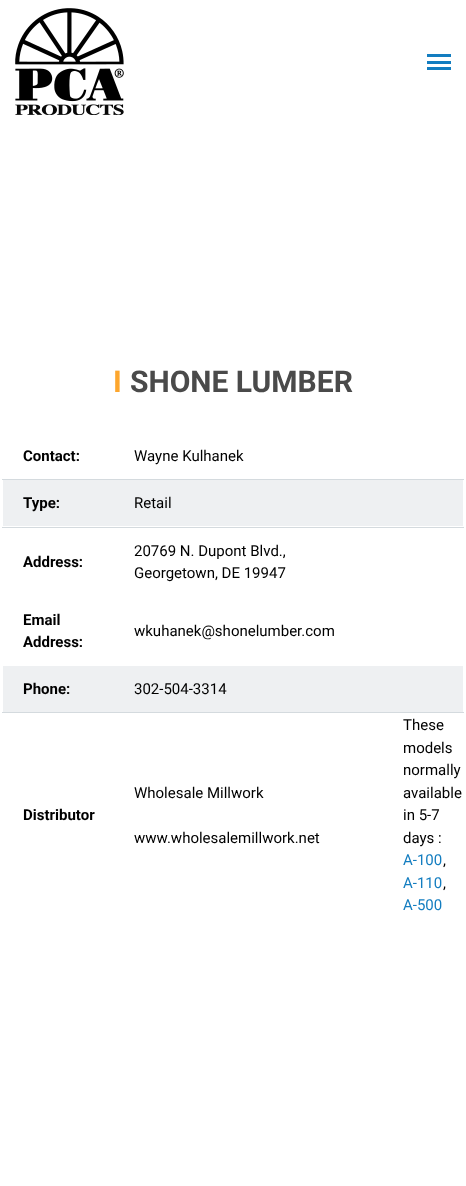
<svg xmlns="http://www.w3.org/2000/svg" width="466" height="1186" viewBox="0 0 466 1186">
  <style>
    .t1 { font: bold 30px Roboto; fill: #fda62d; }
    .t2 { font: bold 30px Roboto; fill: #4a4a4a; }
    .t3 { font: bold 15px Roboto; fill: #000; }
    .t4 { font: 15px Roboto; fill: #000; }
    .t5 { font: 15px Roboto; fill: #137dc0; }
  </style>
  <rect width="100%" height="100%" fill="#fff"/>
  <image x="15" y="8" width="109" height="107" href="images/1.png"/>
  <rect x="427" y="54" width="24" height="3" fill="#137dc0"/>
  <rect x="427" y="61" width="24" height="3" fill="#137dc0"/>
  <rect x="427" y="67" width="24" height="3" fill="#137dc0"/>
  <text x="113" y="392" class="t1">I</text>
  <text x="130" y="392" class="t2">SHONE LUMBER</text>
  <rect x="2" y="479" width="462" height="1" fill="#d4dade"/>
  <text x="23" y="461" class="t3">Contact:</text>
  <text x="134" y="461" class="t4">Wayne Kulhanek</text>
  <rect x="3" y="480" width="460" height="46" fill="#eef0f2"/>
  <rect x="2" y="527" width="462" height="1" fill="#d4dade"/>
  <text x="23" y="508" class="t3">Type:</text>
  <text x="134" y="508" class="t4">Retail</text>
  <text x="23" y="567" class="t3">Address:</text>
  <text x="134" y="556" class="t4">20769 N. Dupont Blvd.,</text>
  <text x="134" y="578" class="t4">Georgetown, DE 19947</text>
  <text x="23" y="625" class="t3">Email</text>
  <text x="23" y="647" class="t3">Address:</text>
  <text x="134" y="636" class="t4">wkuhanek@shonelumber.com</text>
  <rect x="3" y="666" width="460" height="46" fill="#eef0f2"/>
  <rect x="2" y="712" width="462" height="1" fill="#d4dade"/>
  <text x="23" y="694" class="t3">Phone:</text>
  <text x="134" y="694" class="t4">302-504-3314</text>
  <text x="23" y="820" class="t3">Distributor</text>
  <text x="134" y="798" class="t4">Wholesale Millwork</text>
  <text x="134" y="843" class="t4">www.wholesalemillwork.net</text>
  <text x="403" y="730" class="t4">These</text>
  <text x="403" y="753" class="t4">models</text>
  <text x="403" y="775" class="t4">normally</text>
  <text x="403" y="798" class="t4">available</text>
  <text x="403" y="820" class="t4">in 5-7</text>
  <text x="403" y="843" class="t4">days :</text>
  <text x="403" y="865" class="t5">A-100</text>
  <text x="443" y="865" class="t4">,</text>
  <text x="403" y="888" class="t5">A-110</text>
  <text x="443" y="888" class="t4">,</text>
  <text x="403" y="910" class="t5">A-500</text>
</svg>
